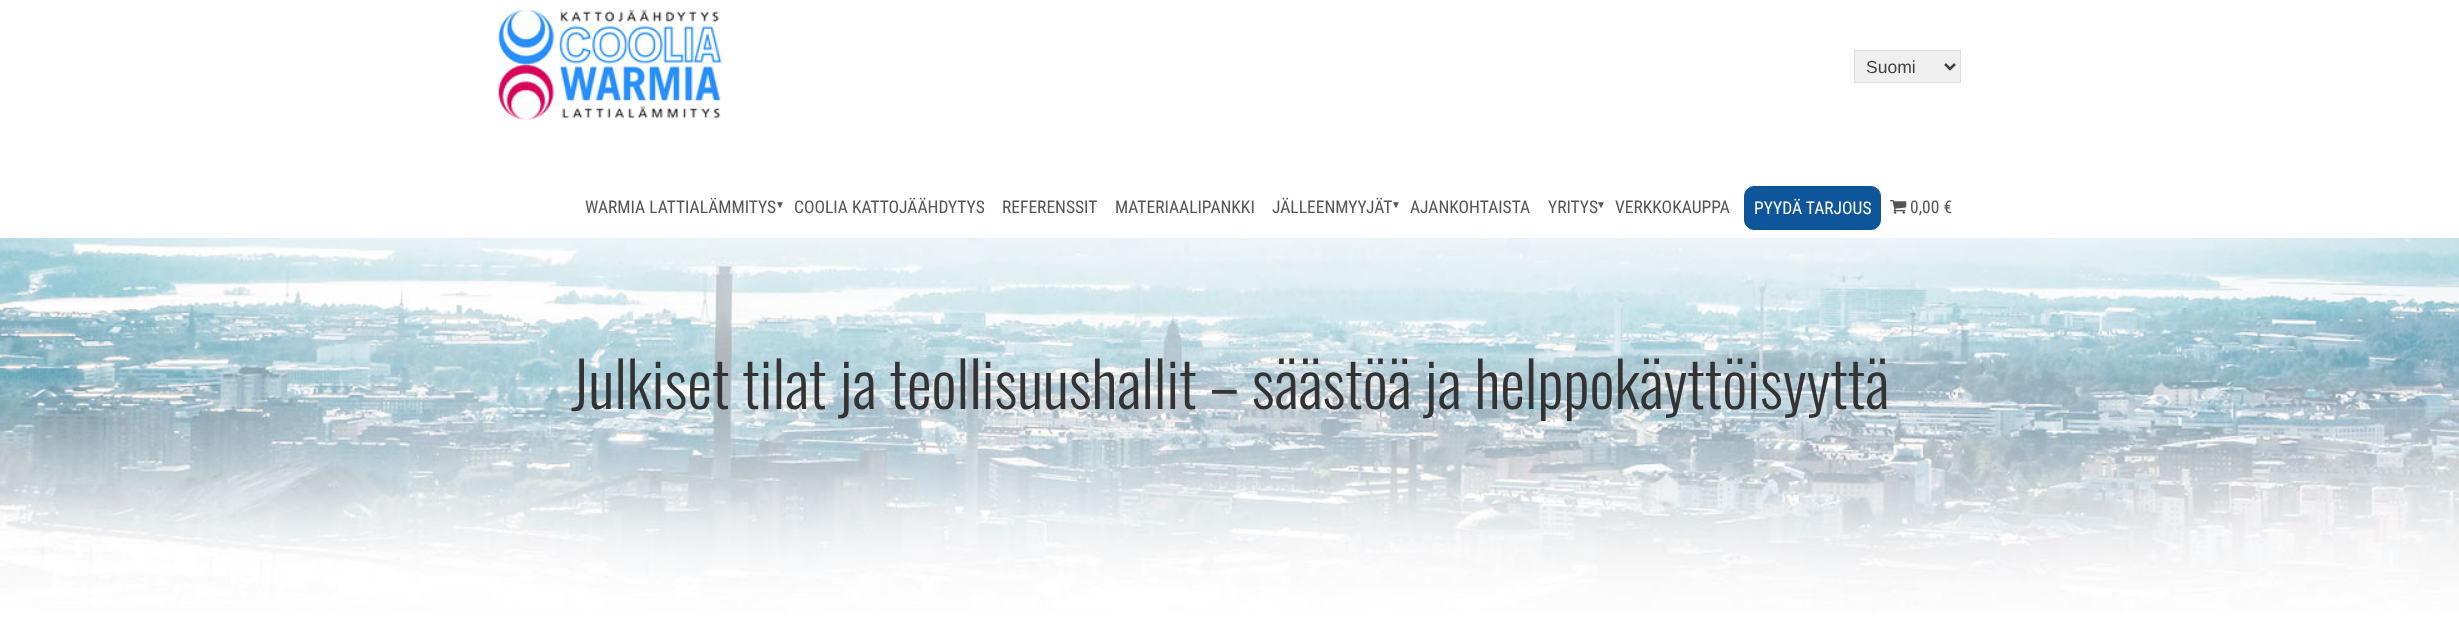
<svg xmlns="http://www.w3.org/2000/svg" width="2459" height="634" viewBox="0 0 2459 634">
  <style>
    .t1 { font: 17.5px Liberation Sans; fill: #404040; }
    .t2 { font: 17.5px Roboto Condensed; fill: #555; }
    .t3 { font: 10px Liberation Sans; fill: #555; }
    .t4 { font: 17.5px Roboto Condensed; fill: #fff; }
    .t5 { font: 300 62.5px Oswald; fill: #333; }
  </style>
  <rect width="100%" height="100%" fill="#fff"/>
  <image x="498" y="9" width="225" height="111" href="images/1.png"/>
  <rect x="1854.5" y="50.5" width="106" height="32" fill="#efefef" stroke="#ddd"/>
  <path d="M1945 64L1950 69L1955 64" fill="none" stroke="#404040" stroke-width="2.5"/>
  <text x="1866" y="73" class="t1">Suomi</text>
  <text x="585" y="213" class="t2">WARMIA LATTIALÄMMITYS</text>
  <text x="775" y="208" class="t3">▼</text>
  <text x="794" y="213" class="t2">COOLIA KATTOJÄÄHDYTYS</text>
  <text x="1002" y="213" class="t2">REFERENSSIT</text>
  <text x="1115" y="213" class="t2">MATERIAALIPANKKI</text>
  <text x="1272" y="213" class="t2">JÄLLEENMYYJÄT</text>
  <text x="1391" y="208" class="t3">▼</text>
  <text x="1410" y="213" class="t2">AJANKOHTAISTA</text>
  <text x="1548" y="213" class="t2">YRITYS</text>
  <text x="1596" y="208" class="t3">▼</text>
  <text x="1615" y="213" class="t2">VERKKOKAUPPA</text>
  <rect x="1744.5" y="186.5" width="136" height="43" rx="9.5" fill="#0f559b" stroke="#0f559b"/>
  <text x="1754" y="214" class="t4">PYYDÄ TARJOUS</text>
  <image x="1890" y="200" width="17" height="14" href="images/2.png"/>
  <text x="1910" y="213" class="t2">0,00 €</text>
  <image x="0" y="238" width="2459" height="374" href="images/3.png"/>
  <text x="571" y="409" class="t5">Julkiset tilat ja teollisuushallit – säästöä ja helppokäyttöisyyttä</text>
</svg>
